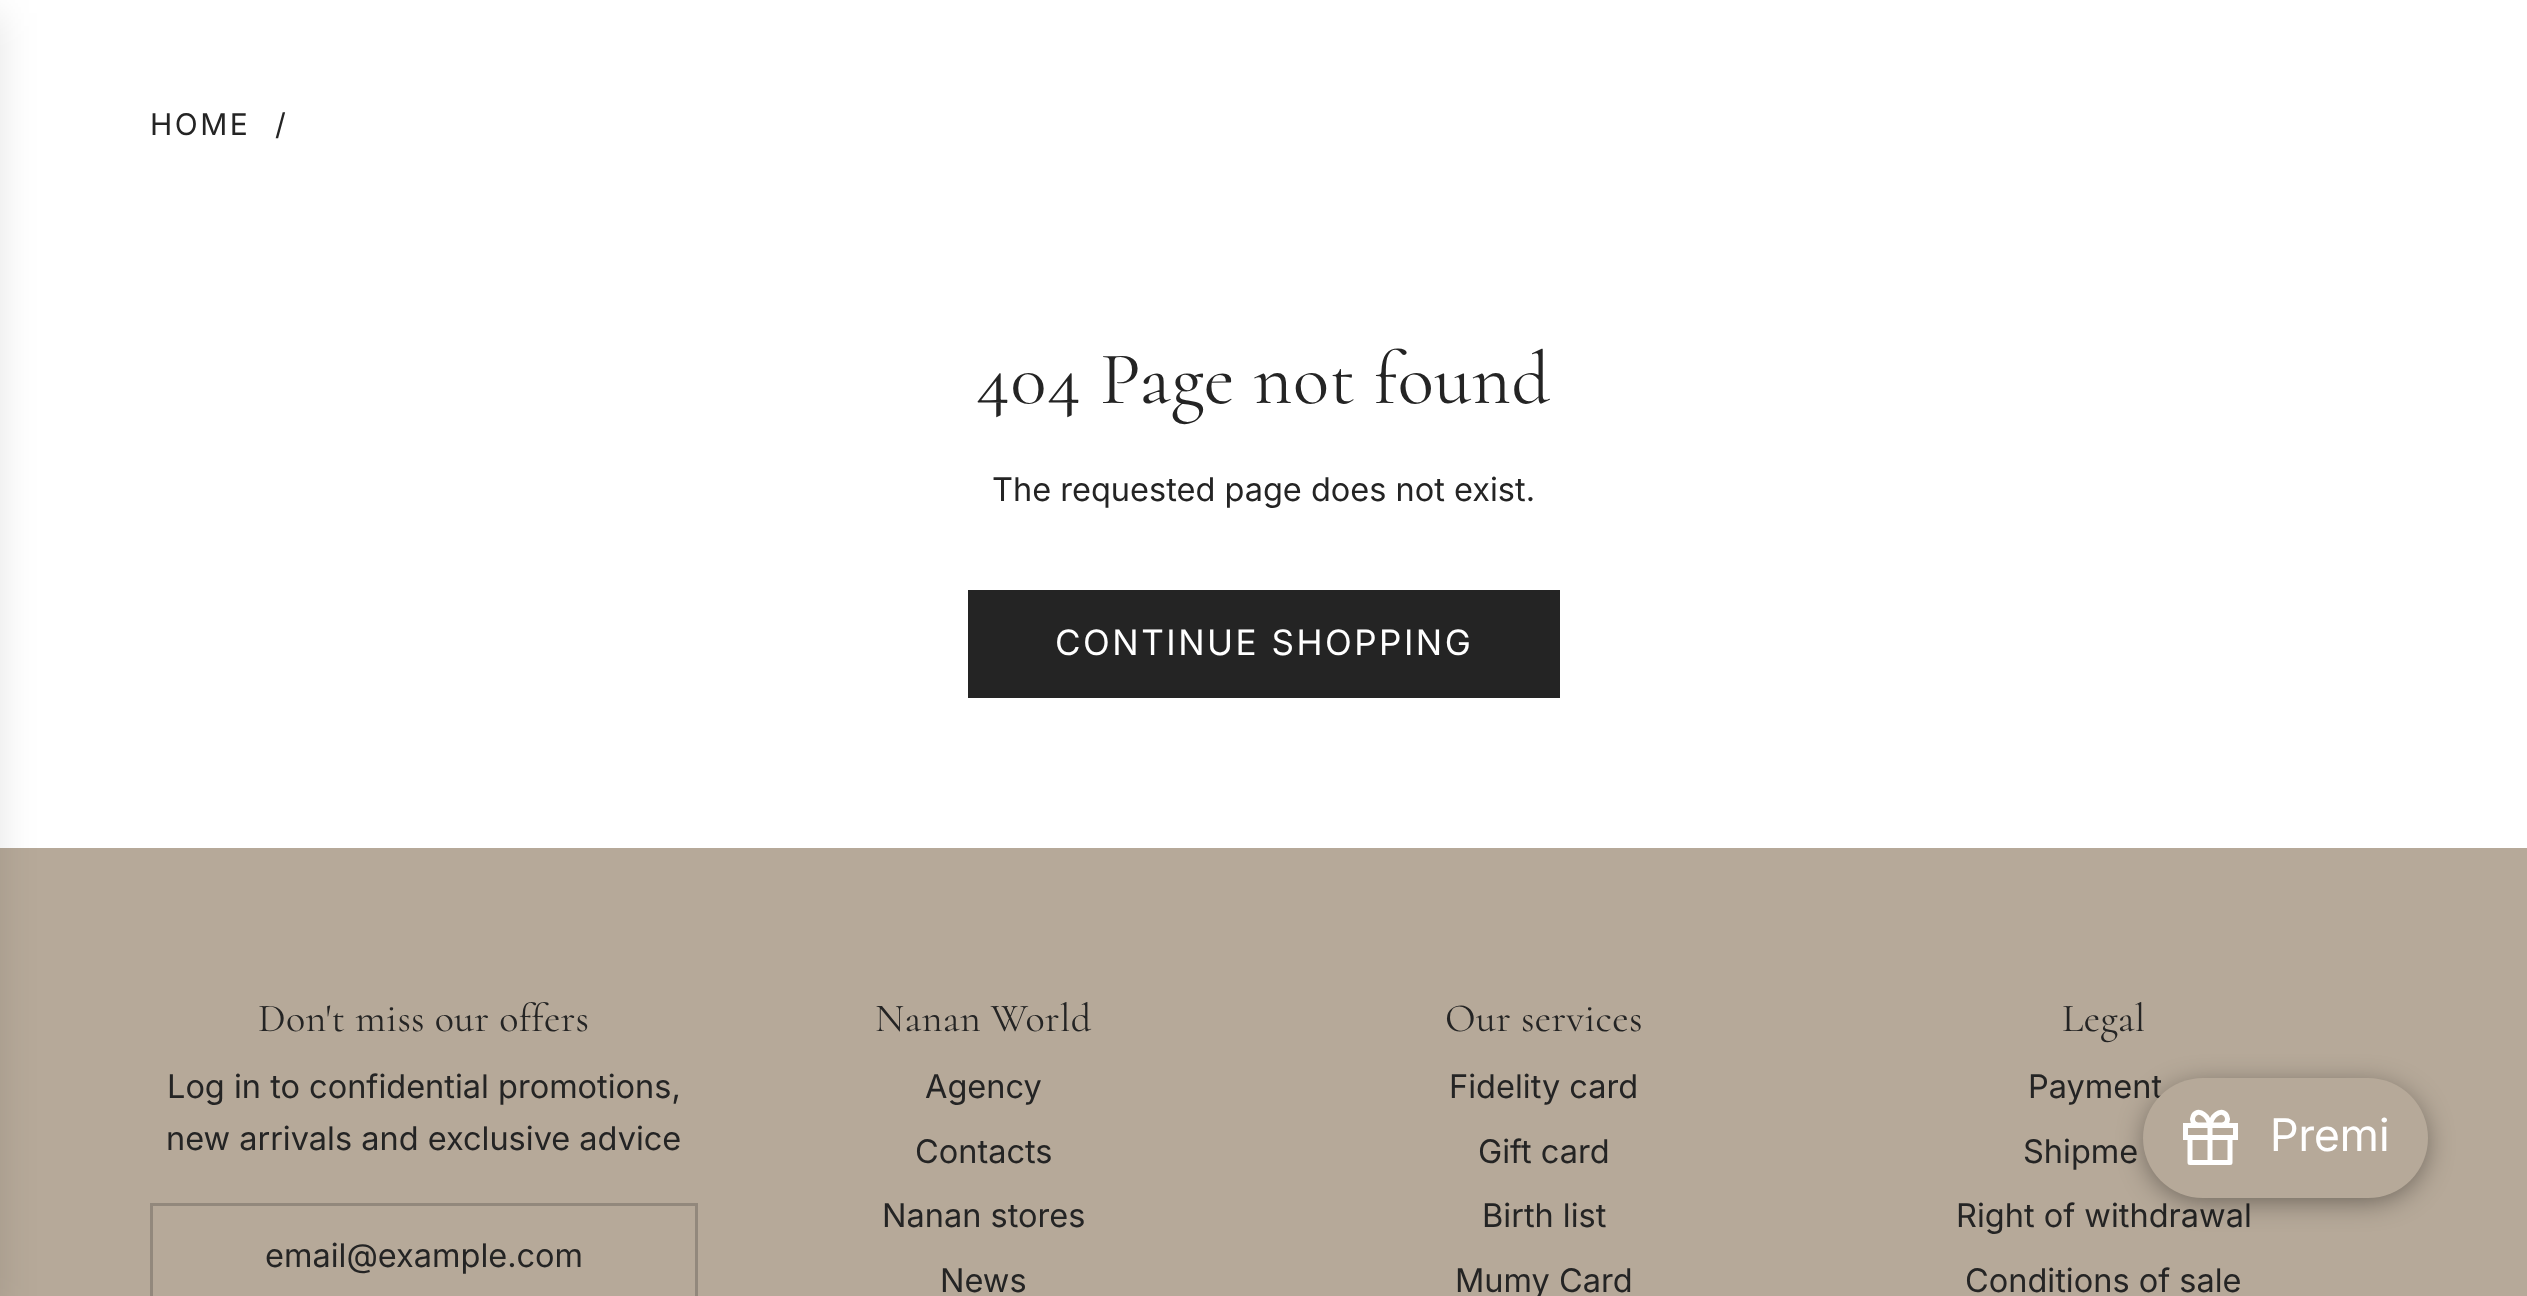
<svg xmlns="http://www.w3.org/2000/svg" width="2527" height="1296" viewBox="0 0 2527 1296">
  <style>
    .t1 { font: 30px Inter; letter-spacing: 2.5px; fill: #242424; }
    .t2 { font: 30px Inter; fill: #242424; }
    .t3 { font: 75px Cormorant; letter-spacing: 0.75px; fill: #242424; }
    .t4 { font: 32.5px Inter; fill: #242424; }
    .t5 { font: 35px Inter; letter-spacing: 2.5px; fill: #fff; }
    .t6 { font: 40px Cormorant; letter-spacing: 0.4px; fill: #242424; }
    .t7 { font: 45px 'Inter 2'; fill: #fff; }
  </style>
  <rect width="100%" height="100%" fill="#fff"/>
  <rect x="0" y="848" width="2527" height="448" fill="#b6a999"/>
  <rect x="-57" y="13" width="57" height="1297" fill="#0000001a" filter="blur(19px)"/>
  <text x="150" y="135" class="t1">HOME</text>
  <text x="275" y="135" class="t2">/</text>
  <text x="976" y="403" class="t3">404 Page not found</text>
  <text x="992" y="501" class="t4">The requested page does not exist.</text>
  <rect x="968" y="590" width="592" height="108" fill="#242424"/>
  <text x="1055" y="655" class="t5">CONTINUE SHOPPING</text>
  <text x="258" y="1031" class="t6">Don't miss our offers</text>
  <text x="167" y="1098" class="t4">Log in to confidential promotions,</text>
  <text x="166" y="1150" class="t4">new arrivals and exclusive advice</text>
  <rect x="151.5" y="1204.5" width="545" height="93" fill="none" stroke="#92887c" stroke-width="3"/>
  <text x="265" y="1267" class="t4">email@example.com</text>
  <text x="875" y="1031" class="t6">Nanan World</text>
  <text x="925" y="1098" class="t4">Agency</text>
  <text x="915" y="1163" class="t4">Contacts</text>
  <text x="882" y="1227" class="t4">Nanan stores</text>
  <text x="940" y="1292" class="t4">News</text>
  <text x="1445" y="1031" class="t6">Our services</text>
  <text x="1449" y="1098" class="t4">Fidelity card</text>
  <text x="1478" y="1163" class="t4">Gift card</text>
  <text x="1482" y="1227" class="t4">Birth list</text>
  <text x="1455" y="1292" class="t4">Mumy Card</text>
  <text x="2062" y="1031" class="t6">Legal</text>
  <text x="2028" y="1098" class="t4">Payment</text>
  <text x="2023" y="1163" class="t4">Shipme</text>
  <text x="1956" y="1227" class="t4">Right of withdrawal</text>
  <text x="1965" y="1292" class="t4">Conditions of sale</text>
  <rect x="2148" y="1088" width="275" height="110" rx="55" fill="#00000080" filter="blur(15px)"/>
  <rect x="2143" y="1078" width="285" height="120" rx="60" fill="#b6a999"/>
  <path d="M2230 1137.5V1162.5H2190V1137.5" fill="none" stroke="#fff" stroke-width="5" stroke-linecap="round" stroke-linejoin="round"/>
  <rect x="2185.5" y="1125.5" width="50" height="12" fill="none" stroke="#fff" stroke-width="5"/>
  <path d="M2210 1162.5V1125M2210 1125H2197.5C2187.5 1123 2194 1106.5 2204 1114.5C2207.5 1117 2209 1121 2210 1125ZM2210 1125H2222.5C2232.5 1123 2226 1106.5 2216 1114.5C2212.5 1117 2211 1121 2210 1125Z" fill="none" stroke="#fff" stroke-width="5" stroke-linecap="round" stroke-linejoin="round"/>
  <text x="2270" y="1151" class="t7">Premi</text>
</svg>
